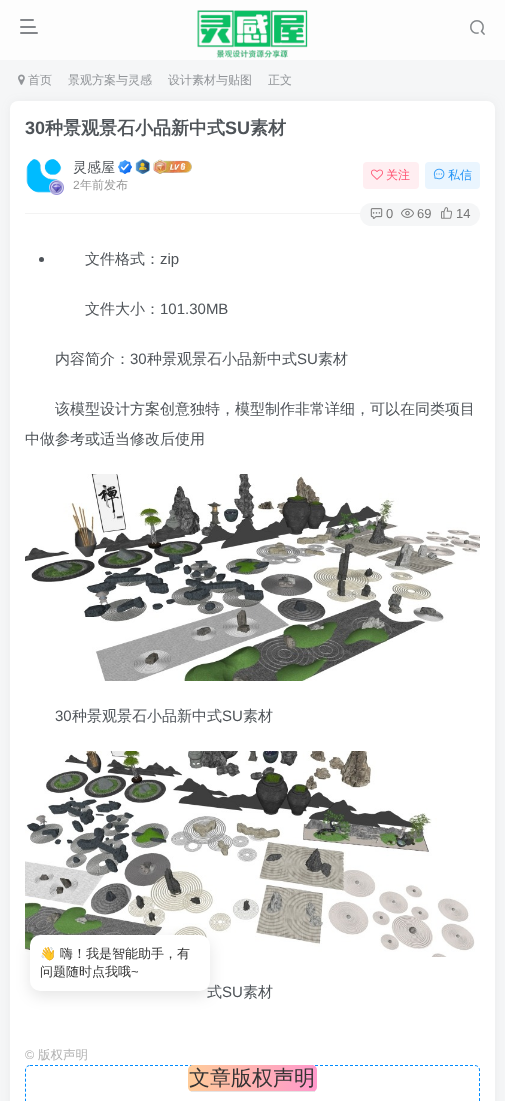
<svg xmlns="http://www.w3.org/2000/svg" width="505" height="1101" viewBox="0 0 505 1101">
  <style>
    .t1 { font: 500 12px WenQuanYi Zen Hei; fill: #919498; }
    .t2 { font: bold 18px Liberation Sans; fill: #4e5358; }
    .t3 { font: bold 18px WenQuanYi Zen Hei; fill: #4e5358; }
    .t4 { font: 500 14px WenQuanYi Zen Hei; fill: #4e5358; }
    .t5 { font: 12px Liberation Sans; fill: #999; }
    .t6 { font: 500 12px WenQuanYi Zen Hei; fill: #999; }
    .t7 { font: 500 12px WenQuanYi Zen Hei; fill: #ff5473; }
    .t8 { font: 500 12px WenQuanYi Zen Hei; fill: #2997f7; }
    .t9 { font: 13px Liberation Sans; fill: #777; }
    .t10 { font: 500 15px WenQuanYi Zen Hei; fill: #4e5358; }
    .t11 { font: 15px Liberation Sans; fill: #4e5358; }
    .t12 { font: 12.5px Liberation Sans; fill: #b1b1b1; }
    .t13 { font: 500 12.5px WenQuanYi Zen Hei; fill: #b1b1b1; }
    .t14 { font: 500 21px WenQuanYi Zen Hei; fill: #333; }
    .t15 { font: 13px Noto Color Emoji; fill: #333; }
    .t16 { font: 500 13px WenQuanYi Zen Hei; fill: #333; }
    .t17 { font: 13px Liberation Sans; fill: #333; }
  </style>
  <defs>
    <linearGradient id="g1" gradientUnits="userSpaceOnUse" x1="188" y1="1078" x2="317" y2="1078"><stop offset="0" stop-color="#fc9"/><stop offset="1" stop-color="#f9c"/></linearGradient>
  </defs>
  <rect width="100%" height="100%" fill="#f5f6f7"/>
  <rect x="0" y="0" width="505" height="60" fill="#fdfdfd"/>
  <rect x="20" y="19" width="14" height="2" rx="1" fill="#83868a"/>
  <rect x="20" y="26" width="16" height="2" rx="1" fill="#83868a"/>
  <rect x="20" y="32" width="18" height="2" rx="1" fill="#83868a"/>
  <image x="197" y="10" width="111" height="48" href="images/1.png"/>
  <image x="470" y="20" width="15" height="15" href="images/2.png"/>
  <image x="18" y="74" width="7" height="11" href="images/3.png"/>
  <rect x="10" y="101" width="485" height="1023" rx="8" fill="#74747414" filter="blur(5px)"/>
  <text x="28" y="84" class="t1">首页</text>
  <text x="68" y="84" class="t1">景观方案与灵感</text>
  <text x="168" y="84" class="t1">设计素材与贴图</text>
  <text x="268" y="84" class="t1">正文</text>
  <rect x="10" y="101" width="485" height="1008" rx="8" fill="#fff"/>
  <text x="25" y="134" class="t2">30</text>
  <text x="45" y="134" class="t3">种景观景石小品新中式</text>
  <text x="225" y="134" class="t2">SU</text>
  <text x="250" y="134" class="t3">素材</text>
  <image x="26" y="159" width="36" height="34" href="images/4.png"/>
  <image x="49" y="180" width="15" height="15" href="images/5.png"/>
  <text x="73" y="172" class="t4">灵感屋</text>
  <image x="118" y="160" width="14" height="14" href="images/6.png"/>
  <image x="135" y="159" width="15" height="15" href="images/7.png"/>
  <image x="153" y="159" width="39" height="15" href="images/8.png"/>
  <text x="73" y="189" class="t5">2</text>
  <text x="80" y="189" class="t6">年前发布</text>
  <rect x="363" y="162" width="56" height="27" rx="4" fill="#ffeef1"/>
  <image x="371" y="169" width="12" height="11" href="images/9.png"/>
  <text x="386" y="179" class="t7">关注</text>
  <rect x="425" y="162" width="55" height="27" rx="4" fill="#eaf5fe"/>
  <image x="433" y="168" width="12" height="12" href="images/10.png"/>
  <text x="448" y="179" class="t8">私信</text>
  <rect x="25" y="213" width="455" height="1" fill="#f3f3f3"/>
  <rect x="360" y="203" width="120" height="23" rx="11.5" fill="#f5f6f7"/>
  <image x="370" y="208" width="13" height="11" href="images/11.png"/>
  <text x="386" y="218" class="t9">0</text>
  <image x="401" y="208" width="13" height="10" href="images/12.png"/>
  <text x="417" y="218" class="t9">69</text>
  <image x="441" y="207" width="11" height="12" href="images/13.png"/>
  <text x="456" y="218" class="t9">14</text>
  <circle cx="41.5" cy="259.5" r="2.5" fill="#4e5358"/>
  <text x="85" y="264" class="t10">文件格式：</text>
  <text x="160" y="264" class="t11">zip</text>
  <text x="85" y="314" class="t10">文件大小：</text>
  <text x="160" y="314" class="t11">101.30MB</text>
  <text x="55" y="364" class="t10">内容简介：</text>
  <text x="130" y="364" class="t11">30</text>
  <text x="147" y="364" class="t10">种景观景石小品新中式</text>
  <text x="297" y="364" class="t11">SU</text>
  <text x="318" y="364" class="t10">素材</text>
  <text x="55" y="414" class="t10">该模型设计方案创意独特，模型制作非常详细，可以在同类项目</text>
  <text x="25" y="444" class="t10">中做参考或适当修改后使用</text>
  <image x="25" y="474" width="455" height="207" href="images/14.png"/>
  <text x="55" y="721" class="t11">30</text>
  <text x="72" y="721" class="t10">种景观景石小品新中式</text>
  <text x="222" y="721" class="t11">SU</text>
  <text x="243" y="721" class="t10">素材</text>
  <image x="25" y="751" width="450" height="206" href="images/15.png"/>
  <text x="207" y="997" class="t10">式</text>
  <text x="222" y="997" class="t11">SU</text>
  <text x="243" y="997" class="t10">素材</text>
  <text x="25" y="1059" class="t12">©</text>
  <text x="38" y="1059" class="t13">版权声明</text>
  <path d="M30 1065.5H475C477.5 1065.5 479.5 1067.5 479.5 1070V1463C479.5 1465.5 477.5 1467.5 475 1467.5H30C27.5 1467.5 25.5 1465.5 25.5 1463V1070C25.5 1067.5 27.5 1065.5 30 1065.5Z" fill="none" stroke="#008cff" stroke-dasharray="3 2"/>
  <rect x="188" y="1065" width="129" height="27" rx="5" fill="url(#g1)"/>
  <rect x="191" y="1091" width="124" height="1" fill="#e5e5e5"/>
  <text x="189" y="1085" class="t14">文章版权声明</text>
  <rect x="30" y="940" width="180" height="56" rx="10" fill="#0000001a" filter="blur(7.5px)"/>
  <rect x="30" y="935" width="180" height="56" rx="10" fill="#fff"/>
  <text x="40" y="958" class="t15">👋</text>
  <text x="60" y="958" class="t16">嗨！我是智能助手，有</text>
  <text x="40" y="976" class="t16">问题随时点我哦</text>
  <text x="131" y="976" class="t17">~</text>
</svg>
